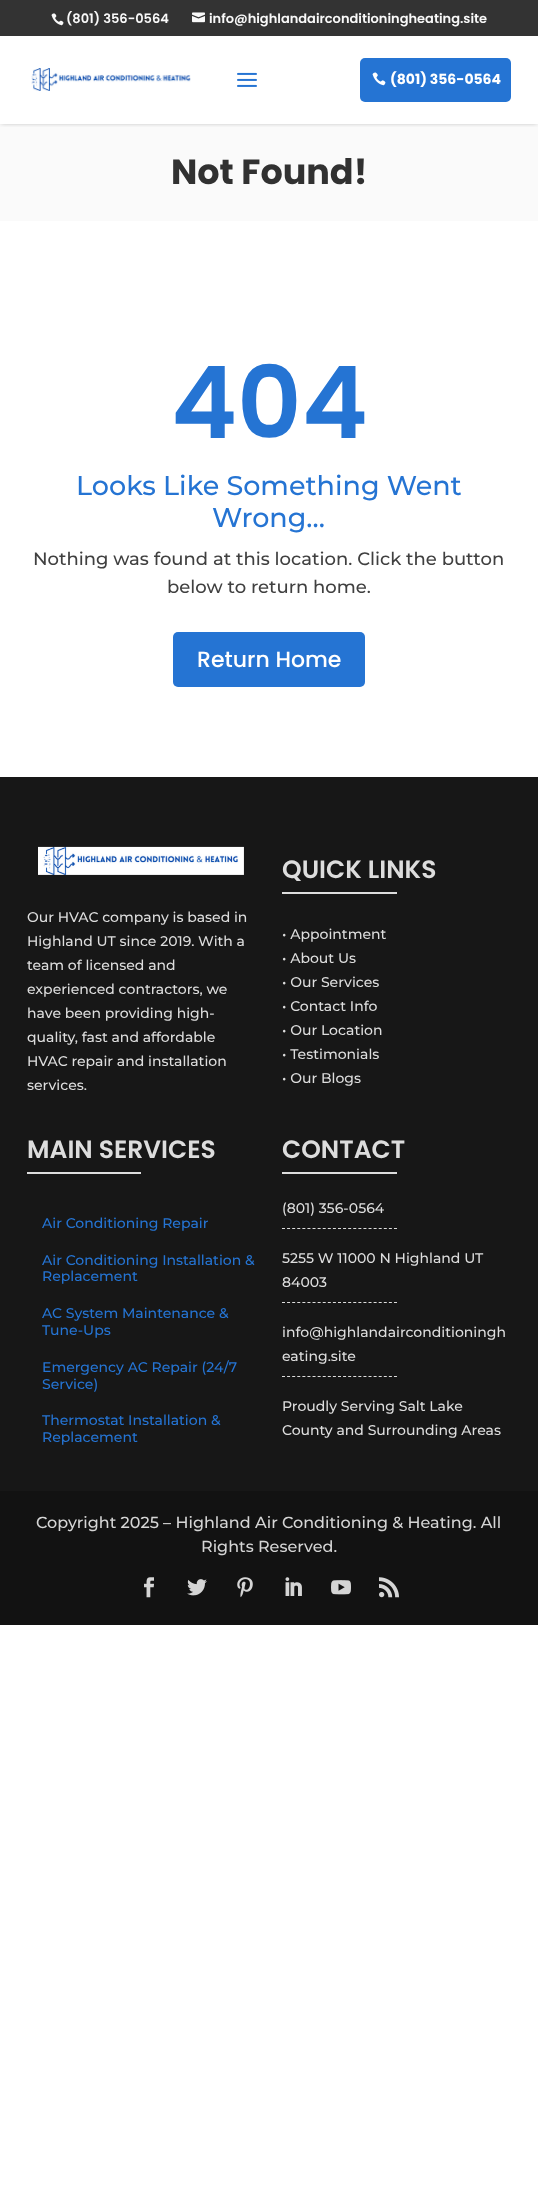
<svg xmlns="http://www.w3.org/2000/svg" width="538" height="2191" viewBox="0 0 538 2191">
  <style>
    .t1 { font: 600 13px Poppins; fill: #f9f9f9; }
    .t2 { font: bold 14px Poppins; fill: #fff; }
    .t3 { font: bold 35px Poppins; fill: #313131; }
    .t4 { font: 600 100px Poppins; fill: #2574d3; }
    .t5 { font: 500 27px Montserrat; fill: #2574d3; }
    .t6 { font: 500 18px Montserrat; fill: #404040; }
    .t7 { font: 500 22px Poppins; fill: #fff; }
    .t8 { font: 500 14px Montserrat; fill: #ddd; }
    .t9 { font: 600 25px Poppins; fill: #ddd; }
    .t10 { font: 500 14px Montserrat; fill: #2574d3; }
    .t11 { font: 500 16px Montserrat; fill: #d5d5d5; }
  </style>
  <defs>
    <clipPath id="clip1"><rect x="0" y="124" width="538" height="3"/></clipPath>
  </defs>
  <rect width="100%" height="100%" fill="#fff"/>
  <rect x="0" y="124" width="538" height="97" fill="#fafafa"/>
  <g clip-path="url(#clip1)">
    <rect x="1" y="1" width="536" height="122" fill="#0000004d" filter="blur(2.5px)"/>
  </g>
  <rect x="0" y="0" width="538" height="36" fill="#333"/>
  <image x="51" y="13" width="13" height="13" href="images/1.png"/>
  <text x="66" y="23" class="t1">(801) 356-0564</text>
  <image x="192" y="12" width="13" height="11" href="images/2.png"/>
  <text x="209" y="23" class="t1">info@highlandairconditioningheating.site</text>
  <image x="31" y="68" width="160" height="23" href="images/3.png"/>
  <image x="237" y="72" width="20" height="15" href="images/4.png"/>
  <rect x="360" y="58" width="151" height="44" rx="5" fill="#2574d3"/>
  <image x="372" y="72" width="14" height="14" href="images/5.png"/>
  <text x="390" y="84" class="t2">(801) 356-0564</text>
  <text x="171" y="184" class="t3">Not Found!</text>
  <text x="171" y="438" class="t4">404</text>
  <text x="76" y="495" class="t5">Looks Like Something Went</text>
  <text x="212" y="527" class="t5">Wrong…</text>
  <text x="33" y="565" class="t6">Nothing was found at this location. Click the button</text>
  <text x="167" y="593" class="t6">below to return home.</text>
  <rect x="173" y="632" width="192" height="55" rx="5" fill="#2574d3"/>
  <text x="197" y="667" class="t7">Return Home</text>
  <rect x="0" y="777" width="538" height="714" fill="#171717"/>
  <image x="38" y="846" width="206" height="29" href="images/6.png"/>
  <text x="27" y="922" class="t8">Our HVAC company is based in</text>
  <text x="27" y="946" class="t8">Highland UT since 2019. With a</text>
  <text x="27" y="970" class="t8">team of licensed and</text>
  <text x="27" y="994" class="t8">experienced contractors, we</text>
  <text x="27" y="1018" class="t8">have been providing high-</text>
  <text x="27" y="1042" class="t8">quality, fast and affordable</text>
  <text x="27" y="1066" class="t8">HVAC repair and installation</text>
  <text x="27" y="1090" class="t8">services.</text>
  <text x="282" y="878" class="t9">QUICK LINKS</text>
  <rect x="282" y="892" width="115" height="2" fill="#ddd"/>
  <text x="282" y="939" class="t8">• Appointment</text>
  <text x="282" y="963" class="t8">• About Us</text>
  <text x="282" y="987" class="t8">• Our Services</text>
  <text x="282" y="1011" class="t8">• Contact Info</text>
  <text x="282" y="1035" class="t8">• Our Location</text>
  <text x="282" y="1059" class="t8">• Testimonials</text>
  <text x="282" y="1083" class="t8">• Our Blogs</text>
  <text x="27" y="1158" class="t9">MAIN SERVICES</text>
  <rect x="27" y="1172" width="114" height="2" fill="#ddd"/>
  <text x="42" y="1228" class="t10">Air Conditioning Repair</text>
  <text x="42" y="1265" class="t10">Air Conditioning Installation &amp;</text>
  <text x="42" y="1281" class="t10">Replacement</text>
  <text x="42" y="1318" class="t10">AC System Maintenance &amp;</text>
  <text x="42" y="1335" class="t10">Tune-Ups</text>
  <text x="42" y="1372" class="t10">Emergency AC Repair (24/7</text>
  <text x="42" y="1389" class="t10">Service)</text>
  <text x="42" y="1425" class="t10">Thermostat Installation &amp;</text>
  <text x="42" y="1442" class="t10">Replacement</text>
  <text x="282" y="1158" class="t9">CONTACT</text>
  <rect x="282" y="1172" width="115" height="2" fill="#ddd"/>
  <text x="282" y="1213" class="t8">(801) 356-0564</text>
  <path d="M282 1228.5H397" fill="none" stroke="#ddd" stroke-dasharray="3 2.09"/>
  <text x="282" y="1263" class="t8">5255 W 11000 N Highland UT</text>
  <text x="282" y="1287" class="t8">84003</text>
  <path d="M282 1302.5H397" fill="none" stroke="#ddd" stroke-dasharray="3 2.09"/>
  <text x="282" y="1337" class="t8">info@highlandairconditioningh</text>
  <text x="282" y="1361" class="t8">eating.site</text>
  <path d="M282 1376.5H397" fill="none" stroke="#ddd" stroke-dasharray="3 2.09"/>
  <text x="282" y="1411" class="t8">Proudly Serving Salt Lake</text>
  <text x="282" y="1435" class="t8">County and Surrounding Areas</text>
  <rect x="0" y="1491" width="538" height="134" fill="#121212"/>
  <text x="36" y="1528" class="t11">Copyright 2025 – Highland Air Conditioning &amp; Heating. All</text>
  <text x="201" y="1552" class="t11">Rights Reserved.</text>
  <image x="144" y="1577" width="10" height="21" href="images/7.png"/>
  <image x="187" y="1579" width="20" height="17" href="images/8.png"/>
  <image x="237" y="1577" width="16" height="21" href="images/9.png"/>
  <image x="285" y="1577" width="17" height="19" href="images/10.png"/>
  <image x="331" y="1580" width="20" height="15" href="images/11.png"/>
  <image x="379" y="1577" width="20" height="21" href="images/12.png"/>
</svg>
